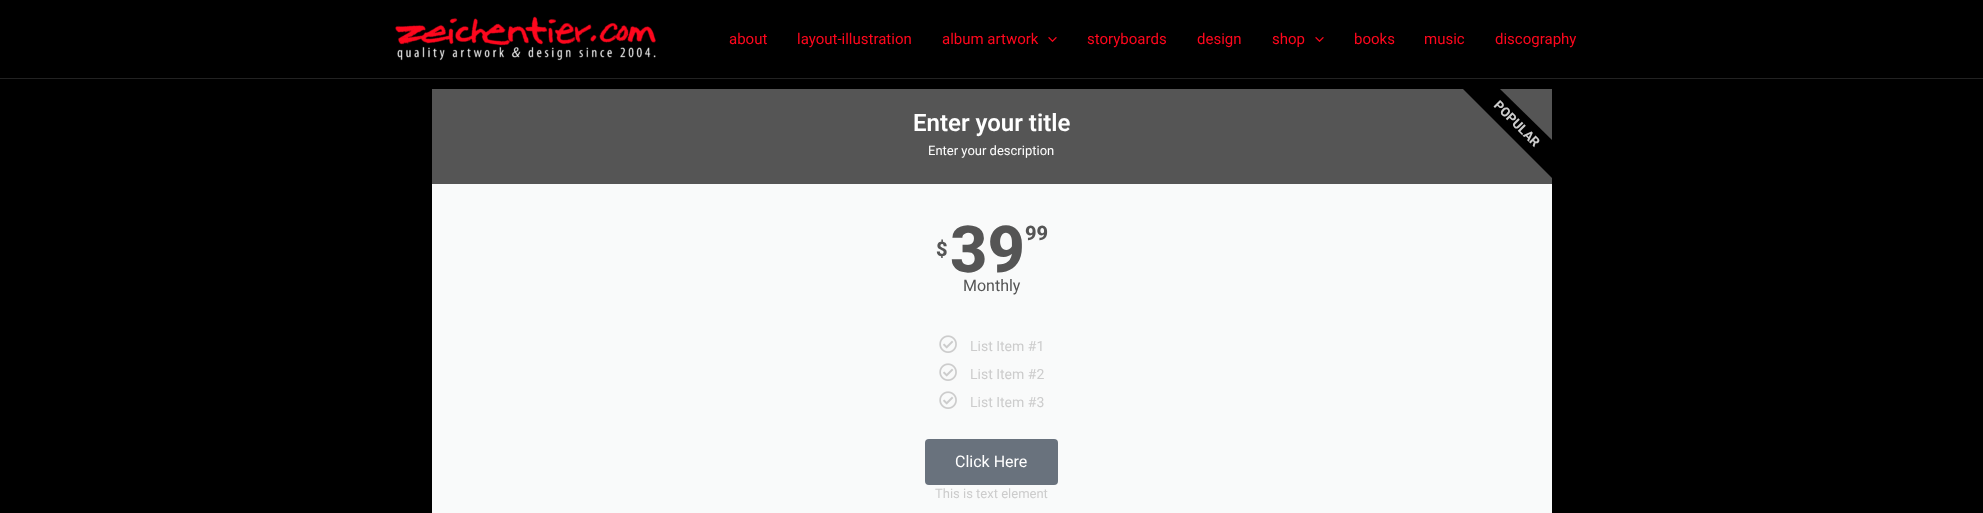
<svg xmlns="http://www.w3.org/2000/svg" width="1983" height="513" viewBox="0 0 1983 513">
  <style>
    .t1 { font: 15px Roboto; fill: #ff071d; }
    .t2 { font: 600 24px Roboto; fill: #fff; }
    .t3 { font: 13px Roboto; fill: #fff; }
    .t4 { font: 800 65px Roboto; fill: #555; }
    .t5 { font: 800 20px Roboto; fill: #555; }
    .t6 { font: 16px Roboto; fill: #555; }
    .t7 { font: 14px Roboto; fill: #ccc; }
    .t8 { font: 16px Roboto; fill: #fff; }
    .t9 { font: 13px Roboto; fill: #ccc; }
    .t10 { font: 800 13px Roboto; fill: #ccc; }
  </style>
  <rect width="100%" height="100%" fill="#000"/>
  <rect x="0" y="78" width="1983" height="1" fill="#222"/>
  <image x="395" y="16" width="261" height="45" href="images/1.png"/>
  <text x="729" y="44" class="t1">about</text>
  <text x="797" y="44" class="t1">layout-illustration</text>
  <text x="942" y="44" class="t1">album artwork</text>
  <image x="1048" y="37" width="9" height="5" href="images/2.png"/>
  <text x="1087" y="44" class="t1">storyboards</text>
  <text x="1197" y="44" class="t1">design</text>
  <text x="1272" y="44" class="t1">shop</text>
  <image x="1315" y="37" width="9" height="5" href="images/2.png"/>
  <text x="1354" y="44" class="t1">books</text>
  <text x="1424" y="44" class="t1">music</text>
  <text x="1495" y="44" class="t1">discography</text>
  <rect x="432" y="184" width="1120" height="329" fill="#f9fafa"/>
  <rect x="432" y="89" width="1120" height="95" fill="#555"/>
  <text x="913" y="131" class="t2">Enter your title</text>
  <text x="928" y="155" class="t3">Enter your description</text>
  <text x="950" y="272" class="t4">39</text>
  <text x="1025" y="240" class="t5">99</text>
  <text x="936" y="256" class="t5">$</text>
  <text x="963" y="291" class="t6">Monthly</text>
  <image x="939" y="335" width="18" height="18" href="images/3.png"/>
  <text x="970" y="351" class="t7">List Item #1</text>
  <image x="939" y="363" width="18" height="18" href="images/3.png"/>
  <text x="970" y="379" class="t7">List Item #2</text>
  <image x="939" y="391" width="18" height="18" href="images/3.png"/>
  <text x="970" y="407" class="t7">List Item #3</text>
  <rect x="925" y="439" width="133" height="46" rx="4" fill="#69727d"/>
  <text x="955" y="467" class="t8">Click Here</text>
  <text x="935" y="498" class="t9">This is text element</text>
  <path d="M1552 178L1463 89H1500L1552 140Z" fill="#000"/>
  <text x="1493" y="106" transform="rotate(45 1493 106)" class="t10">POPULAR</text>
</svg>
